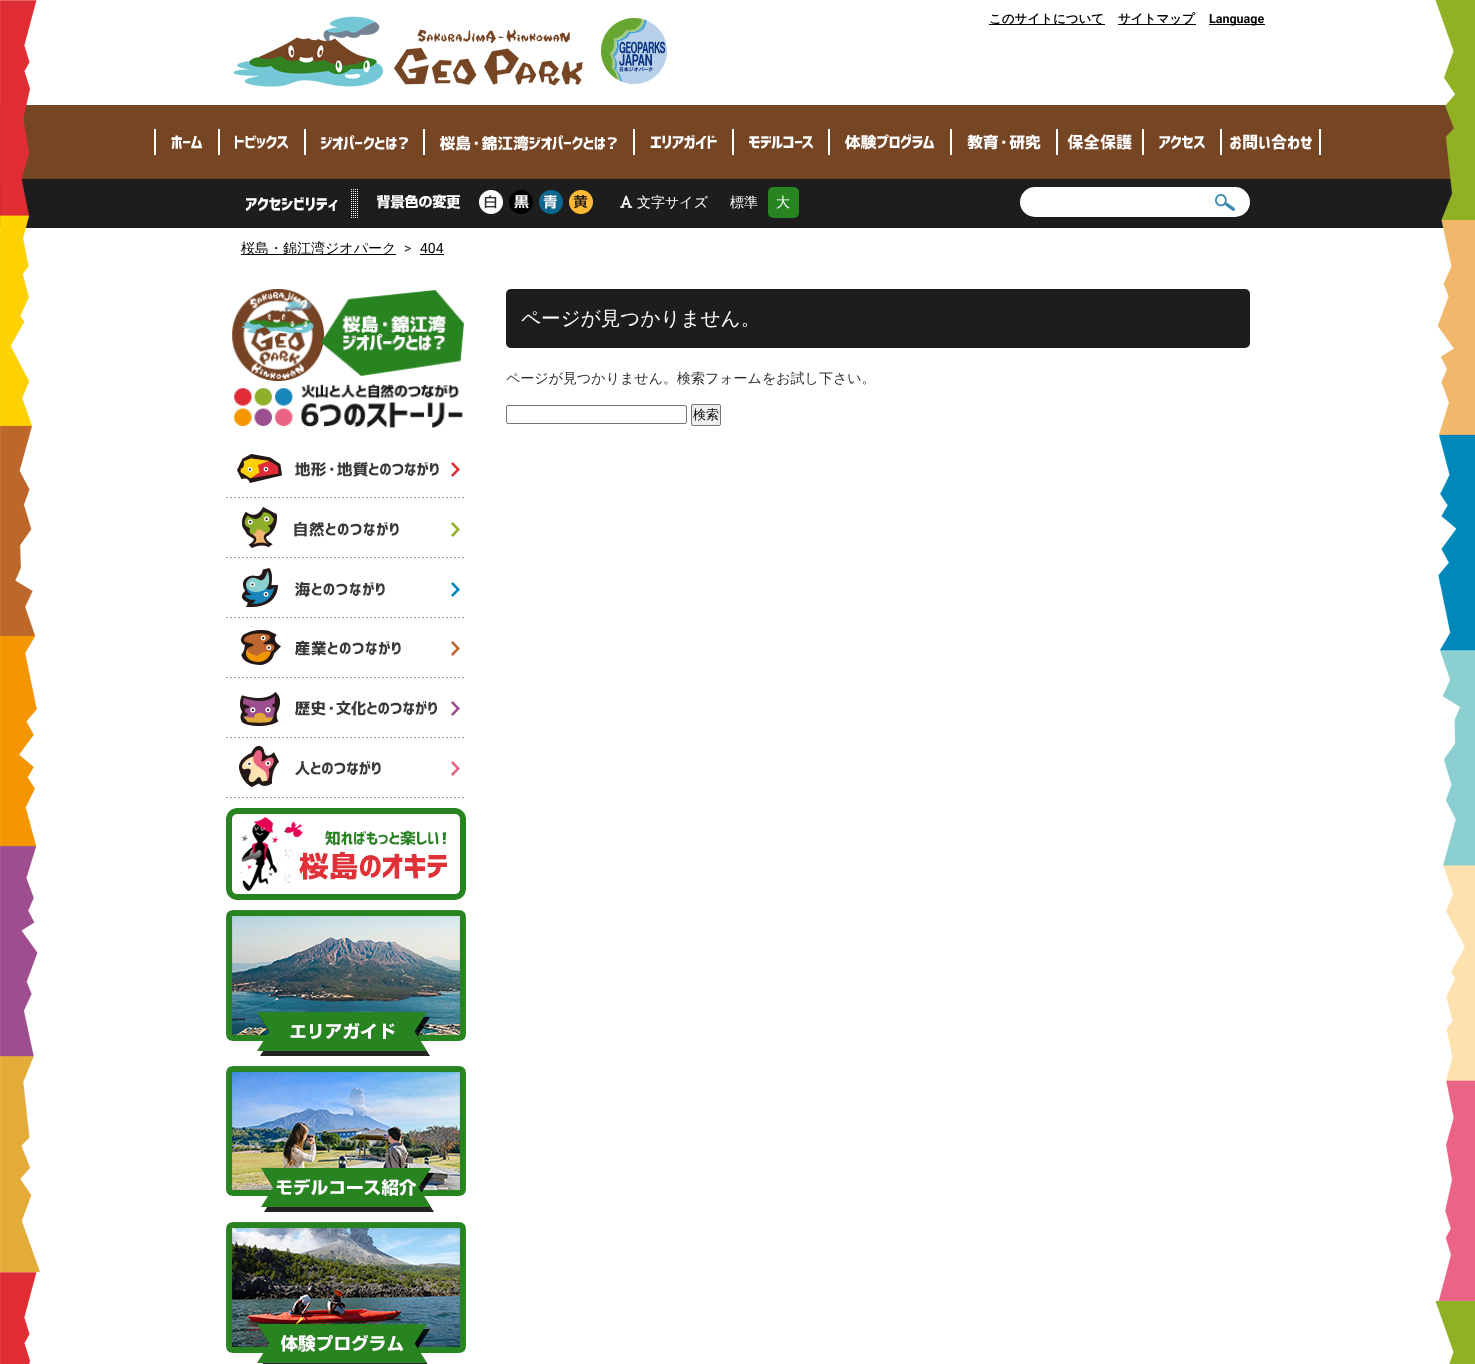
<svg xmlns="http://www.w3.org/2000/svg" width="1475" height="1364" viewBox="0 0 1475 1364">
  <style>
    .t1 { font: bold 12.5px WenQuanYi Zen Hei; fill: #040404; }
    .t2 { font: bold 12.5px Roboto; fill: #040404; }
    .t3 { font: 500 14px WenQuanYi Zen Hei; fill: #fff; }
    .t4 { font: 500 14px WenQuanYi Zen Hei; fill: #040404; }
    .t5 { font: 14px Roboto; fill: #2e302e; }
    .t6 { font: 14px Roboto; fill: #040404; }
    .t7 { font: 500 19.6px WenQuanYi Zen Hei; fill: #fff; }
    .t8 { font: 500 14px WenQuanYi Zen Hei; fill: #2e302e; }
    .t9 { font: 500 13px WenQuanYi Zen Hei; fill: #040404; }
  </style>
  <rect width="100%" height="100%" fill="#fff"/>
  <rect x="0" y="105" width="1455" height="74" fill="#764524"/>
  <rect x="0" y="179" width="1453" height="49" fill="#1d1d1d"/>
  <image x="0" y="0" width="40" height="1364" href="images/1.png"/>
  <image x="233" y="16" width="434" height="71" href="images/2.png"/>
  <rect x="989" y="24" width="116" height="1" fill="#040404"/>
  <text x="989" y="23" class="t1">このサイトについて</text>
  <rect x="1118" y="24" width="78" height="1" fill="#040404"/>
  <text x="1118" y="23" class="t1">サイトマップ</text>
  <rect x="1209" y="24" width="56" height="1" fill="#040404"/>
  <text x="1209" y="23" class="t2">Language</text>
  <rect x="154" y="129" width="2" height="26" fill="#fff"/>
  <image x="171" y="135" width="32" height="14" href="images/3.png"/>
  <rect x="218" y="129" width="2" height="26" fill="#fff"/>
  <image x="235" y="135" width="53" height="14" href="images/4.png"/>
  <rect x="304" y="129" width="2" height="26" fill="#fff"/>
  <image x="321" y="135" width="87" height="15" href="images/5.png"/>
  <rect x="423" y="129" width="2" height="26" fill="#fff"/>
  <image x="440" y="135" width="177" height="16" href="images/6.png"/>
  <rect x="633" y="129" width="2" height="26" fill="#fff"/>
  <image x="650" y="135" width="67" height="14" href="images/7.png"/>
  <rect x="732" y="129" width="2" height="26" fill="#fff"/>
  <image x="749" y="136" width="64" height="13" href="images/8.png"/>
  <rect x="828" y="129" width="2" height="26" fill="#fff"/>
  <image x="845" y="134" width="90" height="16" href="images/9.png"/>
  <rect x="950" y="129" width="2" height="26" fill="#fff"/>
  <image x="967" y="134" width="74" height="16" href="images/10.png"/>
  <rect x="1056" y="129" width="2" height="26" fill="#fff"/>
  <image x="1067" y="134" width="65" height="16" href="images/11.png"/>
  <rect x="1142" y="129" width="2" height="26" fill="#fff"/>
  <image x="1159" y="135" width="46" height="14" href="images/12.png"/>
  <rect x="1319" y="129" width="2" height="26" fill="#fff"/>
  <rect x="1220" y="129" width="2" height="26" fill="#fff"/>
  <image x="1230" y="134" width="82" height="16" href="images/13.png"/>
  <image x="246" y="189" width="112" height="29" href="images/14.png"/>
  <image x="377" y="194" width="83" height="15" href="images/15.png"/>
  <image x="479" y="190" width="24" height="24" href="images/16.png"/>
  <image x="509" y="190" width="24" height="24" href="images/17.png"/>
  <image x="539" y="190" width="24" height="24" href="images/18.png"/>
  <image x="569" y="190" width="24" height="24" href="images/19.png"/>
  <image x="620" y="195" width="13" height="13" href="images/20.png"/>
  <text x="637" y="207" class="t3">文字サイズ</text>
  <text x="730" y="207" class="t3">標準</text>
  <rect x="768" y="187" width="31" height="31" rx="5" fill="#288321"/>
  <text x="776" y="207" class="t3">大</text>
  <rect x="1020" y="187" width="230" height="30" rx="15" fill="#fff"/>
  <image x="1215" y="194" width="20" height="17" href="images/21.png"/>
  <rect x="241" y="254" width="155" height="1" fill="#040404"/>
  <text x="241" y="253" class="t4">桜島・錦江湾ジオパーク</text>
  <text x="404" y="253" class="t5">&gt;</text>
  <text x="420" y="253" class="t6">404</text>
  <rect x="420" y="254" width="24" height="1" fill="#040404"/>
  <image x="232" y="289" width="232" height="139" href="images/22.png"/>
  <image x="226" y="454" width="238" height="44" href="images/23.png"/>
  <image x="226" y="507" width="238" height="51" href="images/24.png"/>
  <image x="226" y="568" width="238" height="50" href="images/25.png"/>
  <image x="226" y="630" width="238" height="48" href="images/26.png"/>
  <image x="226" y="692" width="238" height="46" href="images/27.png"/>
  <image x="226" y="746" width="238" height="52" href="images/28.png"/>
  <image x="226" y="808" width="240" height="92" href="images/29.png"/>
  <image x="226" y="910" width="240" height="146" href="images/30.png"/>
  <image x="226" y="1066" width="240" height="146" href="images/31.png"/>
  <image x="226" y="1222" width="240" height="142" href="images/32.png"/>
  <rect x="506" y="289" width="744" height="59" rx="5" fill="#1d1d1d"/>
  <text x="521" y="325" class="t7">ページが見つかりません。</text>
  <text x="506" y="383" class="t8">ページが見つかりません。検索フォームをお試し下さい。</text>
  <rect x="506.5" y="405.5" width="180" height="18" rx="1.5" fill="none" stroke="#767676"/>
  <rect x="691.5" y="404.5" width="29" height="21" rx="1.5" fill="#efefef" stroke="#767676"/>
  <text x="693" y="419" class="t9">検索</text>
  <image x="1435" y="0" width="40" height="1364" href="images/33.png"/>
</svg>
